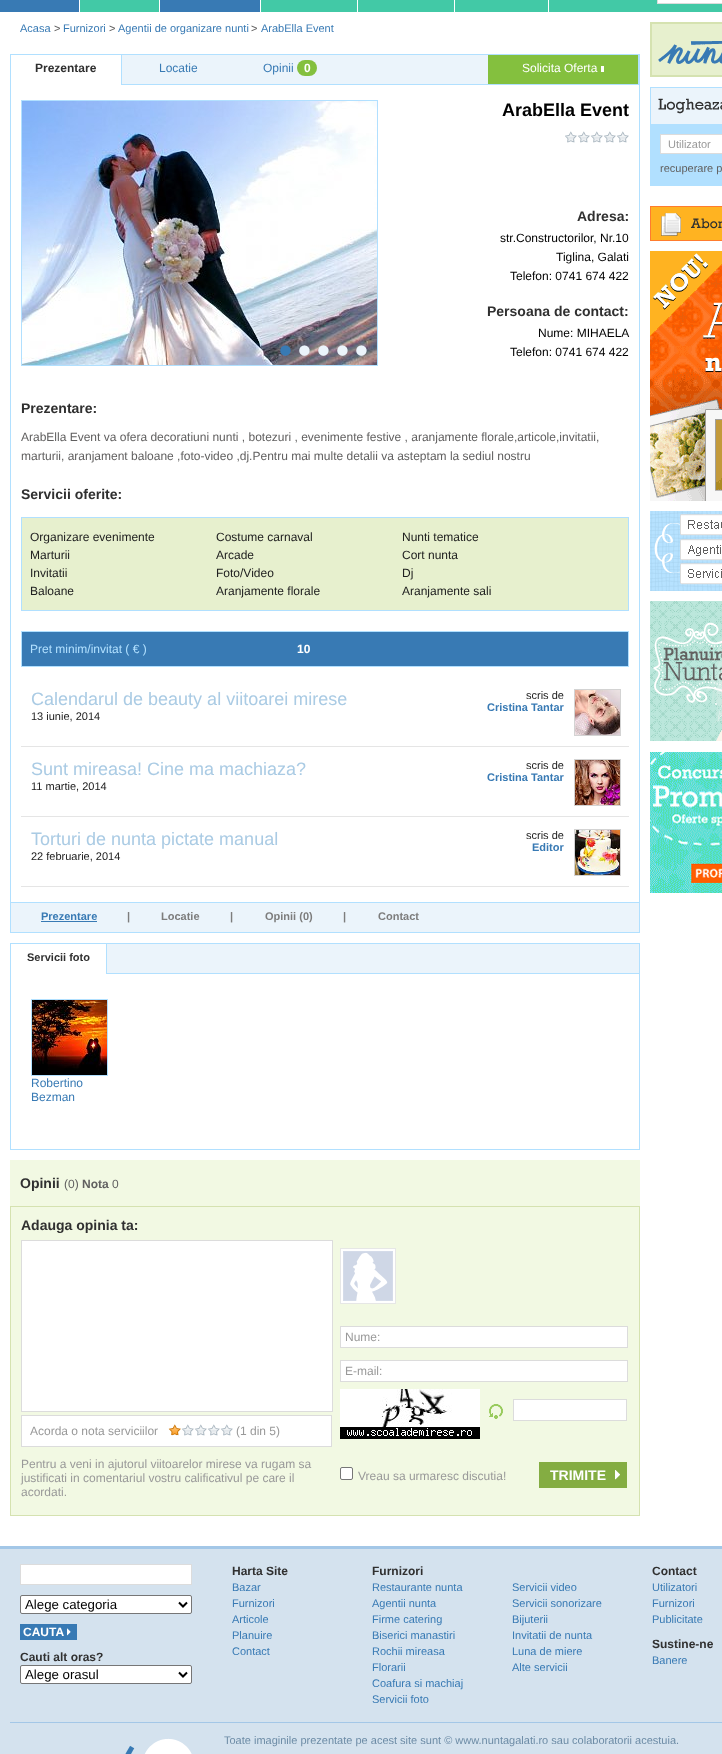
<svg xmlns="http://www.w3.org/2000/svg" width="722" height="1754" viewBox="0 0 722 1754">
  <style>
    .t1 { font: 11px Liberation Sans; fill: #387ab4; }
    .t2 { font: 11px Liberation Sans; fill: #616060; }
    .t3 { font: bold 12px Liberation Sans; fill: #303030; }
    .t4 { font: 12px Liberation Sans; fill: #387ab4; }
    .t5 { font: bold 12px Liberation Sans; fill: #fff; }
    .t6 { font: 12px Liberation Sans; fill: #fff; }
    .t7 { font: bold 18px Liberation Sans; fill: #000; }
    .t8 { font: bold 14px Liberation Sans; fill: #303030; }
    .t9 { font: 12px Liberation Sans; fill: #000; }
    .t10 { font: 12px Liberation Sans; fill: #616060; }
    .t11 { font: 12px Liberation Sans; fill: #212121; }
    .t12 { font: 12px Liberation Sans; fill: #b1e0ff; }
    .t13 { font: 18px Liberation Sans; fill: #aacbe4; }
    .t14 { font: 11px Liberation Sans; fill: #212121; }
    .t15 { font: bold 11px Liberation Sans; fill: #387ab4; }
    .t16 { font: bold 11px Liberation Sans; fill: #7d7d7d; }
    .t17 { font: bold 11px Liberation Sans; fill: #303030; }
    .t18 { font: bold 12px Liberation Sans; fill: #616060; }
    .t19 { font: 12px Liberation Sans; fill: #999; }
    .t20 { font: bold 14px Liberation Sans; fill: #fff; }
    .t21 { font: 11px Liberation Sans; fill: #999; }
    .t22 { font: 13.25px Liberation Sans; fill: #000; }
    .t23 { font: 11px Liberation Sans; fill: #6d8ca6; }
  </style>
  <rect width="100%" height="100%" fill="#42c9a6"/>
  <rect x="79" y="0" width="1" height="12" fill="#fff"/>
  <rect x="0" y="0" width="79" height="12" fill="#387ab4"/>
  <rect x="159" y="0" width="1" height="12" fill="#fff"/>
  <rect x="260" y="0" width="1" height="12" fill="#fff"/>
  <rect x="160" y="0" width="100" height="12" fill="#387ab4"/>
  <rect x="357" y="0" width="1" height="12" fill="#fff"/>
  <rect x="454" y="0" width="1" height="12" fill="#fff"/>
  <rect x="548" y="0" width="1" height="12" fill="#fff"/>
  <rect x="657.5" y="-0.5" width="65" height="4" fill="#fff" stroke="#dcdcdc"/>
  <rect x="0" y="12" width="722" height="1534" fill="#fff"/>
  <text x="20" y="32" class="t1">Acasa</text>
  <text x="54" y="32" class="t2">&gt;</text>
  <text x="63" y="32" class="t1">Furnizori</text>
  <text x="109" y="32" class="t2">&gt;</text>
  <text x="118" y="32" class="t1">Agentii de organizare nunti</text>
  <text x="251" y="32" class="t2">&gt;</text>
  <text x="261" y="32" class="t1">ArabElla Event</text>
  <rect x="10.5" y="54.5" width="629" height="848" fill="none" stroke="#b1e0ff"/>
  <rect x="122" y="55" width="366" height="29" fill="#ebf4fb"/>
  <rect x="122" y="84" width="366" height="1" fill="#b1e0ff"/>
  <rect x="121" y="55" width="1" height="30" fill="#b1e0ff"/>
  <text x="35" y="72" class="t3">Prezentare</text>
  <text x="159" y="72" class="t4">Locatie</text>
  <text x="263" y="72" class="t4">Opinii</text>
  <rect x="297" y="60" width="20" height="16" rx="8" fill="#84c03e"/>
  <text x="304" y="72" class="t5">0</text>
  <rect x="488" y="55" width="150" height="29" fill="#84c03e"/>
  <rect x="638" y="55" width="1" height="30" fill="#b1e0ff"/>
  <rect x="488" y="84" width="151" height="1" fill="#b1e0ff"/>
  <text x="522" y="72" class="t6">Solicita Oferta</text>
  <rect x="601" y="66" width="3" height="6" fill="#fff"/>
  <rect x="21.5" y="100.5" width="356" height="265" fill="none" stroke="#b1e0ff"/>
  <image x="22" y="101" width="355" height="264" href="images/1.png"/>
  <image x="280" y="345" width="11" height="11" href="images/2.png"/>
  <image x="299" y="345" width="11" height="11" href="images/3.png"/>
  <image x="318" y="345" width="11" height="11" href="images/4.png"/>
  <image x="337" y="345" width="11" height="11" href="images/5.png"/>
  <image x="356" y="345" width="11" height="11" href="images/6.png"/>
  <text x="502" y="116" class="t7">ArabElla Event</text>
  <image x="565" y="131" width="64" height="12" href="images/7.png"/>
  <text x="577" y="221" class="t8">Adresa:</text>
  <text x="500" y="242" class="t9">str.Constructorilor, Nr.10</text>
  <text x="556" y="261" class="t9">Tiglina, Galati</text>
  <text x="510" y="280" class="t9">Telefon: 0741 674 422</text>
  <text x="487" y="316" class="t8">Persoana de contact:</text>
  <text x="538" y="337" class="t9">Nume: MIHAELA</text>
  <text x="510" y="356" class="t9">Telefon: 0741 674 422</text>
  <text x="21" y="413" class="t8">Prezentare:</text>
  <text x="21" y="441" class="t10">ArabElla Event va ofera decoratiuni nunti , botezuri , evenimente festive , aranjamente florale,articole,invitatii,</text>
  <text x="21" y="460" class="t10">marturii, aranjament baloane ,foto-video ,dj.Pentru mai multe detalii va asteptam la sediul nostru</text>
  <text x="21" y="499" class="t8">Servicii oferite:</text>
  <rect x="21.5" y="517.5" width="607" height="93" fill="#e7f0ce" stroke="#b1e0ff"/>
  <text x="30" y="541" class="t11">Organizare evenimente</text>
  <text x="216" y="541" class="t11">Costume carnaval</text>
  <text x="402" y="541" class="t11">Nunti tematice</text>
  <text x="30" y="559" class="t11">Marturii</text>
  <text x="216" y="559" class="t11">Arcade</text>
  <text x="402" y="559" class="t11">Cort nunta</text>
  <text x="30" y="577" class="t11">Invitatii</text>
  <text x="216" y="577" class="t11">Foto/Video</text>
  <text x="402" y="577" class="t11">Dj</text>
  <text x="30" y="595" class="t11">Baloane</text>
  <text x="216" y="595" class="t11">Aranjamente florale</text>
  <text x="402" y="595" class="t11">Aranjamente sali</text>
  <rect x="21.5" y="631.5" width="607" height="35" fill="#387ab4" stroke="#b1e0ff"/>
  <text x="30" y="653" class="t12">Pret minim/invitat ( € )</text>
  <text x="297" y="653" class="t5">10</text>
  <rect x="21" y="746" width="608" height="1" fill="#e5e5e5"/>
  <text x="31" y="705" class="t13">Calendarul de beauty al viitoarei mirese</text>
  <text x="31" y="720" class="t14">13 iunie, 2014</text>
  <text x="526" y="699" class="t14">scris de</text>
  <text x="487" y="711" class="t15">Cristina Tantar</text>
  <rect x="574.5" y="689.5" width="46" height="46" fill="none" stroke="#d3d3d3"/>
  <image x="575" y="690" width="45" height="45" href="images/8.png"/>
  <rect x="21" y="816" width="608" height="1" fill="#e5e5e5"/>
  <text x="31" y="775" class="t13">Sunt mireasa! Cine ma machiaza?</text>
  <text x="31" y="790" class="t14">11 martie, 2014</text>
  <text x="526" y="769" class="t14">scris de</text>
  <text x="487" y="781" class="t15">Cristina Tantar</text>
  <rect x="574.5" y="759.5" width="46" height="46" fill="none" stroke="#d3d3d3"/>
  <image x="575" y="760" width="45" height="45" href="images/9.png"/>
  <rect x="21" y="886" width="608" height="1" fill="#e5e5e5"/>
  <text x="31" y="845" class="t13">Torturi de nunta pictate manual</text>
  <text x="31" y="860" class="t14">22 februarie, 2014</text>
  <text x="526" y="839" class="t14">scris de</text>
  <text x="532" y="851" class="t15">Editor</text>
  <rect x="574.5" y="829.5" width="46" height="46" fill="none" stroke="#d3d3d3"/>
  <image x="575" y="830" width="45" height="45" href="images/10.png"/>
  <rect x="11" y="903" width="628" height="29" fill="#ebf4fb"/>
  <rect x="639" y="903" width="1" height="30" fill="#b1e0ff"/>
  <rect x="10" y="932" width="630" height="1" fill="#b1e0ff"/>
  <rect x="10" y="903" width="1" height="30" fill="#b1e0ff"/>
  <text x="41" y="920" class="t15">Prezentare</text>
  <rect x="41" y="921" width="56" height="1" fill="#387ab4"/>
  <text x="127" y="920" class="t16">|</text>
  <text x="161" y="920" class="t16">Locatie</text>
  <text x="230" y="920" class="t16">|</text>
  <text x="265" y="920" class="t16">Opinii (0)</text>
  <text x="343" y="920" class="t16">|</text>
  <text x="378" y="920" class="t16">Contact</text>
  <rect x="10.5" y="943.5" width="629" height="206" fill="none" stroke="#b1e0ff"/>
  <rect x="107" y="944" width="532" height="29" fill="#ebf4fb"/>
  <rect x="107" y="973" width="532" height="1" fill="#b1e0ff"/>
  <rect x="106" y="944" width="1" height="30" fill="#b1e0ff"/>
  <text x="27" y="961" class="t17">Servicii foto</text>
  <rect x="31.5" y="999.5" width="76" height="76" fill="none" stroke="#b1e0ff"/>
  <image x="32" y="1000" width="75" height="75" href="images/11.png"/>
  <text x="31" y="1087" class="t4">Robertino</text>
  <text x="31" y="1101" class="t4">Bezman</text>
  <rect x="10" y="1160" width="630" height="46" fill="#f2f9e3"/>
  <rect x="10" y="1206" width="630" height="1" fill="#d5e2b0"/>
  <text x="20" y="1188" class="t8">Opinii</text>
  <text x="64" y="1188" class="t10">(0)</text>
  <text x="82" y="1188" class="t18">Nota</text>
  <text x="112" y="1188" class="t10">0</text>
  <rect x="11" y="1207" width="628" height="308" fill="#f2f9e3"/>
  <rect x="639" y="1207" width="1" height="309" fill="#d5e2b0"/>
  <rect x="10" y="1515" width="630" height="1" fill="#d5e2b0"/>
  <rect x="10" y="1207" width="1" height="309" fill="#d5e2b0"/>
  <text x="21" y="1230" class="t8">Adauga opinia ta:</text>
  <rect x="21.5" y="1240.5" width="311" height="171" fill="#fff" stroke="#dcdcdc"/>
  <rect x="21.5" y="1415.5" width="310" height="31" fill="#fff" stroke="#dcdcdc"/>
  <text x="30" y="1435" class="t19">Acorda o nota serviciilor</text>
  <image x="172" y="1424" width="61" height="12" href="images/12.png"/>
  <image x="168" y="1424" width="13" height="12" href="images/13.png"/>
  <text x="236" y="1435" class="t19">(1 din 5)</text>
  <text x="21" y="1468" class="t19">Pentru a veni in ajutorul viitoarelor mirese va rugam sa</text>
  <text x="21" y="1482" class="t19">justificati in comentariul vostru calificativul pe care il</text>
  <text x="21" y="1496" class="t19">acordati.</text>
  <image x="340" y="1248" width="56" height="56" href="images/14.png"/>
  <rect x="340.5" y="1326.5" width="287" height="21" fill="#fff" stroke="#dcdcdc"/>
  <text x="345" y="1341" class="t19">Nume:</text>
  <rect x="340.5" y="1360.5" width="287" height="21" fill="#fff" stroke="#dcdcdc"/>
  <text x="345" y="1375" class="t19">E-mail:</text>
  <image x="340" y="1389" width="140" height="50" href="images/15.png"/>
  <image x="489" y="1404" width="14" height="15" href="images/16.png"/>
  <rect x="513.5" y="1399.5" width="113" height="21" fill="#fff" stroke="#dcdcdc"/>
  <rect x="340.5" y="1467.5" width="12" height="12" rx="1.5" fill="#fff" stroke="#767676"/>
  <text x="358" y="1480" class="t19">Vreau sa urmaresc discutia!</text>
  <rect x="539" y="1462" width="88" height="26" fill="#84ad42"/>
  <image x="615" y="1470" width="5" height="10" href="images/17.png"/>
  <text x="550" y="1480" class="t20">TRIMITE</text>
  <image x="650" y="22" width="72" height="55" href="images/18.png"/>
  <rect x="651" y="88" width="71" height="36" fill="#ebf4fb"/>
  <rect x="650.5" y="87.5" width="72" height="98" fill="none" stroke="#b1e0ff"/>
  <image x="658" y="98" width="64" height="16" href="images/19.png"/>
  <rect x="651" y="124" width="71" height="61" fill="#b1e0ff"/>
  <rect x="660.5" y="134.5" width="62" height="19" fill="#fff" stroke="#dcdcdc"/>
  <text x="668" y="148" class="t21">Utilizator</text>
  <text x="660" y="172" class="t2">recuperare p</text>
  <image x="650" y="206" width="72" height="35" href="images/20.png"/>
  <image x="650" y="251" width="72" height="250" href="images/21.png"/>
  <image x="650" y="511" width="72" height="80" href="images/22.png"/>
  <image x="650" y="601" width="72" height="140" href="images/23.png"/>
  <image x="650" y="752" width="72" height="141" href="images/24.png"/>
  <rect x="0" y="1549" width="722" height="205" fill="#d4e2ee"/>
  <rect x="0" y="1546" width="722" height="3" fill="#a3c7e7"/>
  <rect x="20.5" y="1564.5" width="171" height="20" fill="#fff" stroke="#dcdcdc"/>
  <rect x="20.5" y="1595.5" width="171" height="18" rx="1.5" fill="#fff" stroke="#767676"/>
  <path d="M179 1602.5L183 1606.5L187 1602.5" fill="none" stroke="#000" stroke-width="2"/>
  <text x="25" y="1609" class="t22">Alege categoria</text>
  <rect x="20" y="1624" width="57" height="16" fill="#387ab4"/>
  <image x="67" y="1628" width="4" height="8" href="images/25.png"/>
  <text x="23" y="1636" class="t5">CAUTA</text>
  <text x="20" y="1661" class="t3">Cauti alt oras?</text>
  <rect x="20.5" y="1665.5" width="171" height="18" rx="1.5" fill="#fff" stroke="#767676"/>
  <path d="M179 1672.5L183 1676.5L187 1672.5" fill="none" stroke="#000" stroke-width="2"/>
  <text x="25" y="1679" class="t22">Alege orasul</text>
  <text x="232" y="1575" class="t3">Harta Site</text>
  <text x="232" y="1591" class="t1">Bazar</text>
  <text x="232" y="1607" class="t1">Furnizori</text>
  <text x="232" y="1623" class="t1">Articole</text>
  <text x="232" y="1639" class="t1">Planuire</text>
  <text x="232" y="1655" class="t1">Contact</text>
  <text x="372" y="1575" class="t3">Furnizori</text>
  <text x="372" y="1591" class="t1">Restaurante nunta</text>
  <text x="372" y="1607" class="t1">Agentii nunta</text>
  <text x="372" y="1623" class="t1">Firme catering</text>
  <text x="372" y="1639" class="t1">Biserici manastiri</text>
  <text x="372" y="1655" class="t1">Rochii mireasa</text>
  <text x="372" y="1671" class="t1">Florarii</text>
  <text x="372" y="1687" class="t1">Coafura si machiaj</text>
  <text x="372" y="1703" class="t1">Servicii foto</text>
  <text x="512" y="1591" class="t1">Servicii video</text>
  <text x="512" y="1607" class="t1">Servicii sonorizare</text>
  <text x="512" y="1623" class="t1">Bijuterii</text>
  <text x="512" y="1639" class="t1">Invitatii de nunta</text>
  <text x="512" y="1655" class="t1">Luna de miere</text>
  <text x="512" y="1671" class="t1">Alte servicii</text>
  <text x="652" y="1575" class="t3">Contact</text>
  <text x="652" y="1591" class="t1">Utilizatori</text>
  <text x="652" y="1607" class="t1">Furnizori</text>
  <text x="652" y="1623" class="t1">Publicitate</text>
  <text x="652" y="1648" class="t3">Sustine-ne</text>
  <text x="652" y="1664" class="t1">Banere</text>
  <rect x="10" y="1722" width="712" height="1" fill="#a3c7e7"/>
  <image x="125" y="1738" width="67" height="16" href="images/26.png"/>
  <text x="224" y="1744" class="t23">Toate imaginile prezentate pe acest site sunt © www.nuntagalati.ro sau colaboratorii acestuia.</text>
</svg>
